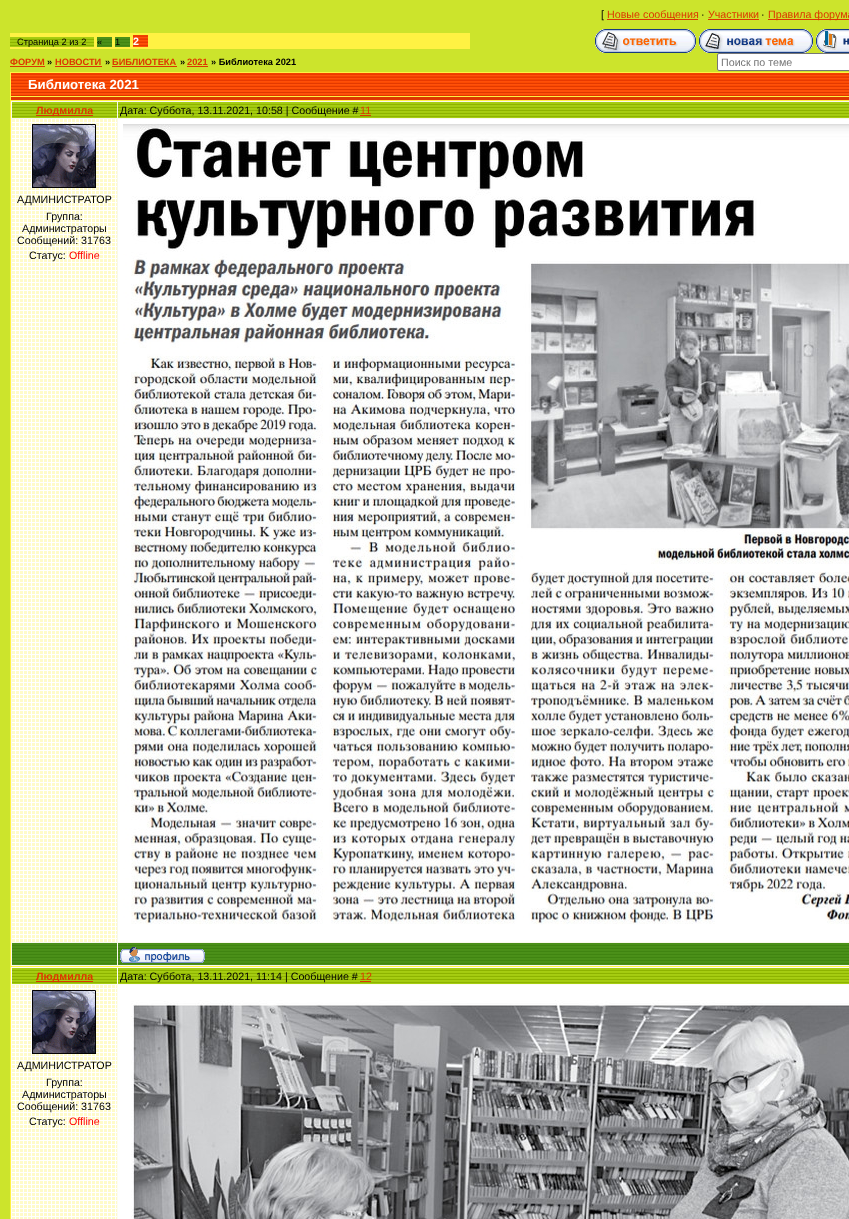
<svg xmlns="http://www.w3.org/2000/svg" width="849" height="1219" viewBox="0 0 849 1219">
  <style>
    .t1 { font: 10.7px Liberation Sans; fill: #000; }
    .t2 { font: 10.7px Liberation Sans; fill: #dc3700; }
    .t3 { font: 9.25px Liberation Sans; fill: #000; }
    .t4 { font: bold 10.7px Liberation Sans; fill: #fff; }
    .t5 { font: bold 9.25px Liberation Sans; fill: #dc3700; }
    .t6 { font: bold 9.25px Liberation Sans; fill: #000; }
    .t7 { font: 10.7px Liberation Sans; fill: #757575; }
    .t8 { font: bold 13.25px Liberation Sans; fill: #fff; }
    .t9 { font: bold 10.7px Liberation Sans; fill: #dc3700; }
    .t10 { font: 10.7px Liberation Sans; fill: #f00; }
  </style>
  <rect width="100%" height="100%" fill="#cce42c"/>
  <text x="601" y="18" class="t1">[</text>
  <rect x="607" y="19" width="91" height="1" fill="#dc3700"/>
  <text x="607" y="18" class="t2">Новые сообщения</text>
  <text x="701" y="18" class="t1">·</text>
  <text x="708" y="18" class="t2">Участники</text>
  <rect x="708" y="19" width="51" height="1" fill="#dc3700"/>
  <text x="761" y="18" class="t1">·</text>
  <rect x="768" y="19" width="81" height="1" fill="#dc3700"/>
  <text x="768" y="18" class="t2">Правила форума</text>
  <rect x="10" y="33" width="460" height="16" fill="#fff243"/>
  <image x="10" y="37" width="84" height="10" href="images/1.png"/>
  <text x="17" y="45" class="t3">Страница 2 из 2</text>
  <rect x="97" y="37" width="15" height="10" fill="#4b9019"/>
  <image x="97" y="39" width="15" height="7" href="images/2.png"/>
  <text x="97" y="45" class="t3">«</text>
  <rect x="115" y="37" width="15" height="10" fill="#4b9019"/>
  <image x="115" y="39" width="15" height="7" href="images/2.png"/>
  <text x="115" y="45" class="t3">1</text>
  <image x="133" y="35" width="15" height="12" href="images/3.png"/>
  <text x="133" y="45" class="t4">2</text>
  <image x="595" y="29" width="101" height="24" href="images/4.png"/>
  <image x="699" y="29" width="114" height="24" href="images/5.png"/>
  <image x="816" y="29" width="33" height="24" href="images/6.png"/>
  <text x="10" y="65" class="t5">ФОРУМ</text>
  <rect x="10" y="66" width="35" height="1" fill="#dc3700"/>
  <text x="47" y="65" class="t6">»</text>
  <text x="55" y="65" class="t5">НОВОСТИ</text>
  <rect x="55" y="66" width="47" height="1" fill="#dc3700"/>
  <text x="105" y="65" class="t6">»</text>
  <text x="112" y="65" class="t5">БИБЛИОТЕКА</text>
  <rect x="112" y="66" width="65" height="1" fill="#dc3700"/>
  <text x="180" y="65" class="t6">»</text>
  <text x="187" y="65" class="t5">2021</text>
  <rect x="187" y="66" width="21" height="1" fill="#dc3700"/>
  <text x="211" y="65" class="t6">» Библиотека 2021</text>
  <rect x="717.5" y="53.5" width="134" height="17" rx="1.5" fill="#fff" stroke="#767676"/>
  <text x="721" y="66" class="t7">Поиск по теме</text>
  <rect x="10" y="72" width="839" height="1147" fill="#fff243"/>
  <image x="11" y="73" width="838" height="23" href="images/7.png"/>
  <text x="28" y="89" class="t8">Библиотека 2021</text>
  <rect x="11" y="97" width="838" height="3" fill="#dc3700"/>
  <rect x="11" y="101" width="838" height="865" fill="#f8f8ed"/>
  <image x="12" y="102" width="105" height="16" href="images/8.png"/>
  <rect x="36" y="115" width="57" height="1" fill="#dc3700"/>
  <text x="36" y="114" class="t9">Людмилла</text>
  <image x="118" y="102" width="731" height="16" href="images/9.png"/>
  <text x="120" y="114" class="t1">Дата: Суббота, 13.11.2021, 10:58 | Сообщение #</text>
  <text x="360" y="114" class="t2">11</text>
  <rect x="360" y="115" width="11" height="1" fill="#dc3700"/>
  <image x="12" y="119" width="105" height="823" href="images/10.png"/>
  <image x="32" y="124" width="64" height="64" href="images/11.png"/>
  <text x="17" y="203" class="t1">АДМИНИСТРАТОР</text>
  <text x="46" y="220" class="t1">Группа:</text>
  <text x="22" y="232" class="t1">Администраторы</text>
  <text x="17" y="244" class="t1">Сообщений: 31763</text>
  <text x="29" y="259" class="t1">Статус:</text>
  <text x="69" y="259" class="t10">Offline</text>
  <rect x="118" y="119" width="731" height="823" fill="#fff"/>
  <image x="123" y="124" width="726" height="801" href="images/12.png"/>
  <rect x="12" y="943" width="105" height="22" fill="#4b9019"/>
  <image x="12" y="945" width="105" height="19" href="images/13.png"/>
  <rect x="118" y="943" width="731" height="22" fill="#4b9019"/>
  <image x="118" y="945" width="731" height="19" href="images/14.png"/>
  <image x="120" y="947" width="85" height="16" href="images/15.png"/>
  <rect x="11" y="967" width="838" height="252" fill="#fdfcf4"/>
  <image x="12" y="968" width="105" height="16" href="images/8.png"/>
  <rect x="36" y="981" width="57" height="1" fill="#dc3700"/>
  <text x="36" y="980" class="t9">Людмилла</text>
  <image x="118" y="968" width="731" height="16" href="images/9.png"/>
  <text x="120" y="980" class="t1">Дата: Суббота, 13.11.2021, 11:14 | Сообщение #</text>
  <text x="360" y="980" class="t2">12</text>
  <rect x="360" y="981" width="11" height="1" fill="#dc3700"/>
  <image x="12" y="985" width="105" height="234" href="images/16.png"/>
  <image x="32" y="990" width="64" height="64" href="images/11.png"/>
  <text x="17" y="1069" class="t1">АДМИНИСТРАТОР</text>
  <text x="46" y="1086" class="t1">Группа:</text>
  <text x="22" y="1098" class="t1">Администраторы</text>
  <text x="17" y="1110" class="t1">Сообщений: 31763</text>
  <text x="29" y="1125" class="t1">Статус:</text>
  <text x="69" y="1125" class="t10">Offline</text>
  <rect x="118" y="985" width="731" height="234" fill="#fff"/>
  <image x="131" y="1000" width="718" height="219" href="images/17.png"/>
</svg>
